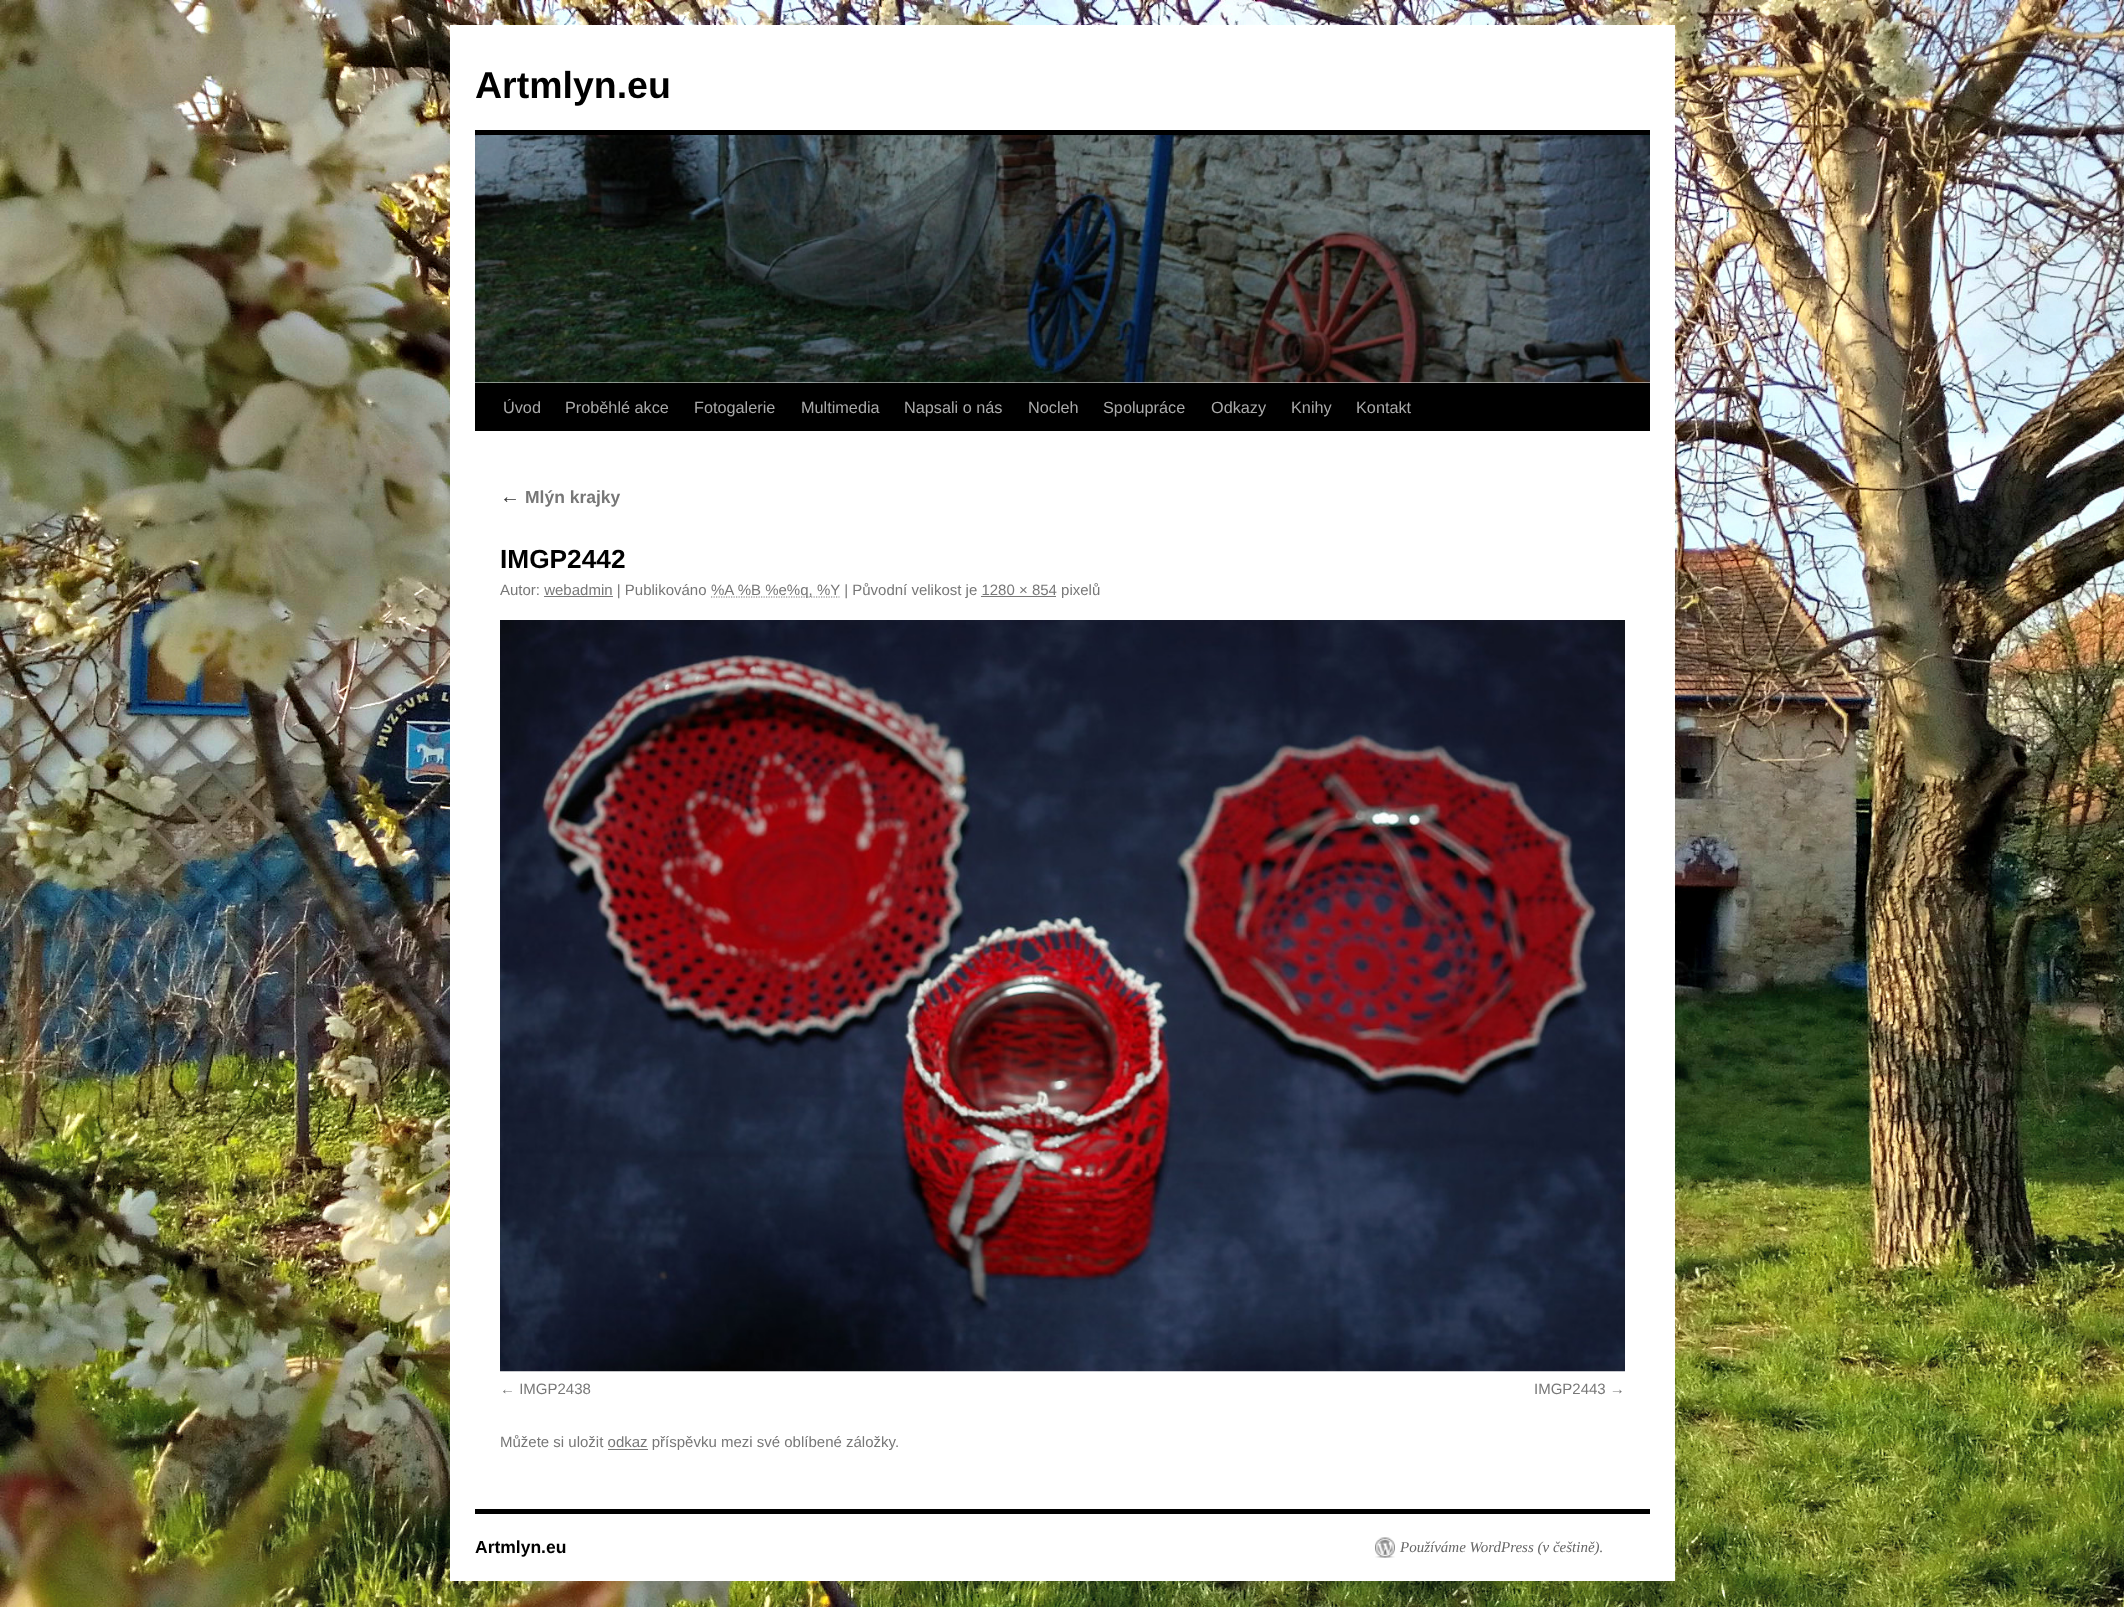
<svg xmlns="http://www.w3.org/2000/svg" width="2124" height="1607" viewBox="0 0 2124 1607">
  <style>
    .t1 { font: bold 37.5px Liberation Sans; fill: #000; }
    .t2 { font: 16.25px Liberation Sans; fill: #aaa; }
    .t3 { font: italic 20px Liberation Serif; fill: #333; }
    .t4 { font: bold 17.5px Liberation Sans; fill: #777; }
    .t5 { font: bold 26.25px Liberation Sans; fill: #000; }
    .t6 { font: 15px Liberation Sans; fill: #777; }
    .t7 { font: bold 17.5px Liberation Sans; fill: #000; }
    .t8 { font: italic 15px Liberation Serif; fill: #666; }
  </style>
  <rect width="100%" height="100%" fill="#fff"/>
  <image x="0" y="0" width="2124" height="1607" href="images/1.png"/>
  <rect x="450" y="25" width="1225" height="1556" fill="#fff"/>
  <text x="475" y="98" class="t1">Artmlyn.eu</text>
  <rect x="475" y="130" width="1175" height="5" fill="#000"/>
  <rect x="475" y="383" width="1175" height="48" fill="#000"/>
  <image x="475" y="135" width="1175" height="248" href="images/2.png"/>
  <text x="503" y="413" class="t2">Úvod</text>
  <text x="565" y="413" class="t2">Proběhlé akce</text>
  <text x="694" y="413" class="t2">Fotogalerie</text>
  <text x="801" y="413" class="t2">Multimedia</text>
  <text x="904" y="413" class="t2">Napsali o nás</text>
  <text x="1028" y="413" class="t2">Nocleh</text>
  <text x="1103" y="413" class="t2">Spolupráce</text>
  <text x="1211" y="413" class="t2">Odkazy</text>
  <text x="1291" y="413" class="t2">Knihy</text>
  <text x="1356" y="413" class="t2">Kontakt</text>
  <text x="500" y="503" class="t3">←</text>
  <text x="525" y="503" class="t4">Mlýn krajky</text>
  <text x="500" y="568" class="t5">IMGP2442</text>
  <text x="500" y="595" class="t6">Autor: webadmin | Publikováno</text>
  <path d="M711 597H839.5" fill="none" stroke="#777" stroke-width="1.2" stroke-dasharray="1.25 1.25"/>
  <text x="711" y="595" class="t6">%A %B %e%q, %Y | Původní velikost je 1280 × 854 pixelů</text>
  <rect x="544" y="596" width="69" height="1" fill="#777"/>
  <rect x="981" y="596" width="75" height="1" fill="#777"/>
  <image x="500" y="620" width="1125" height="752" href="images/3.png"/>
  <text x="500" y="1394" class="t6">← IMGP2438</text>
  <text x="1534" y="1394" class="t6">IMGP2443 →</text>
  <text x="500" y="1447" class="t6">Můžete si uložit odkaz příspěvku mezi své oblíbené záložky.</text>
  <rect x="608" y="1449" width="40" height="1" fill="#777"/>
  <rect x="475" y="1509" width="1175" height="5" fill="#000"/>
  <text x="475" y="1553" class="t7">Artmlyn.eu</text>
  <image x="1375" y="1537" width="20" height="21" href="images/4.png"/>
  <text x="1400" y="1552" class="t8">Používáme WordPress (v češtině).</text>
</svg>
